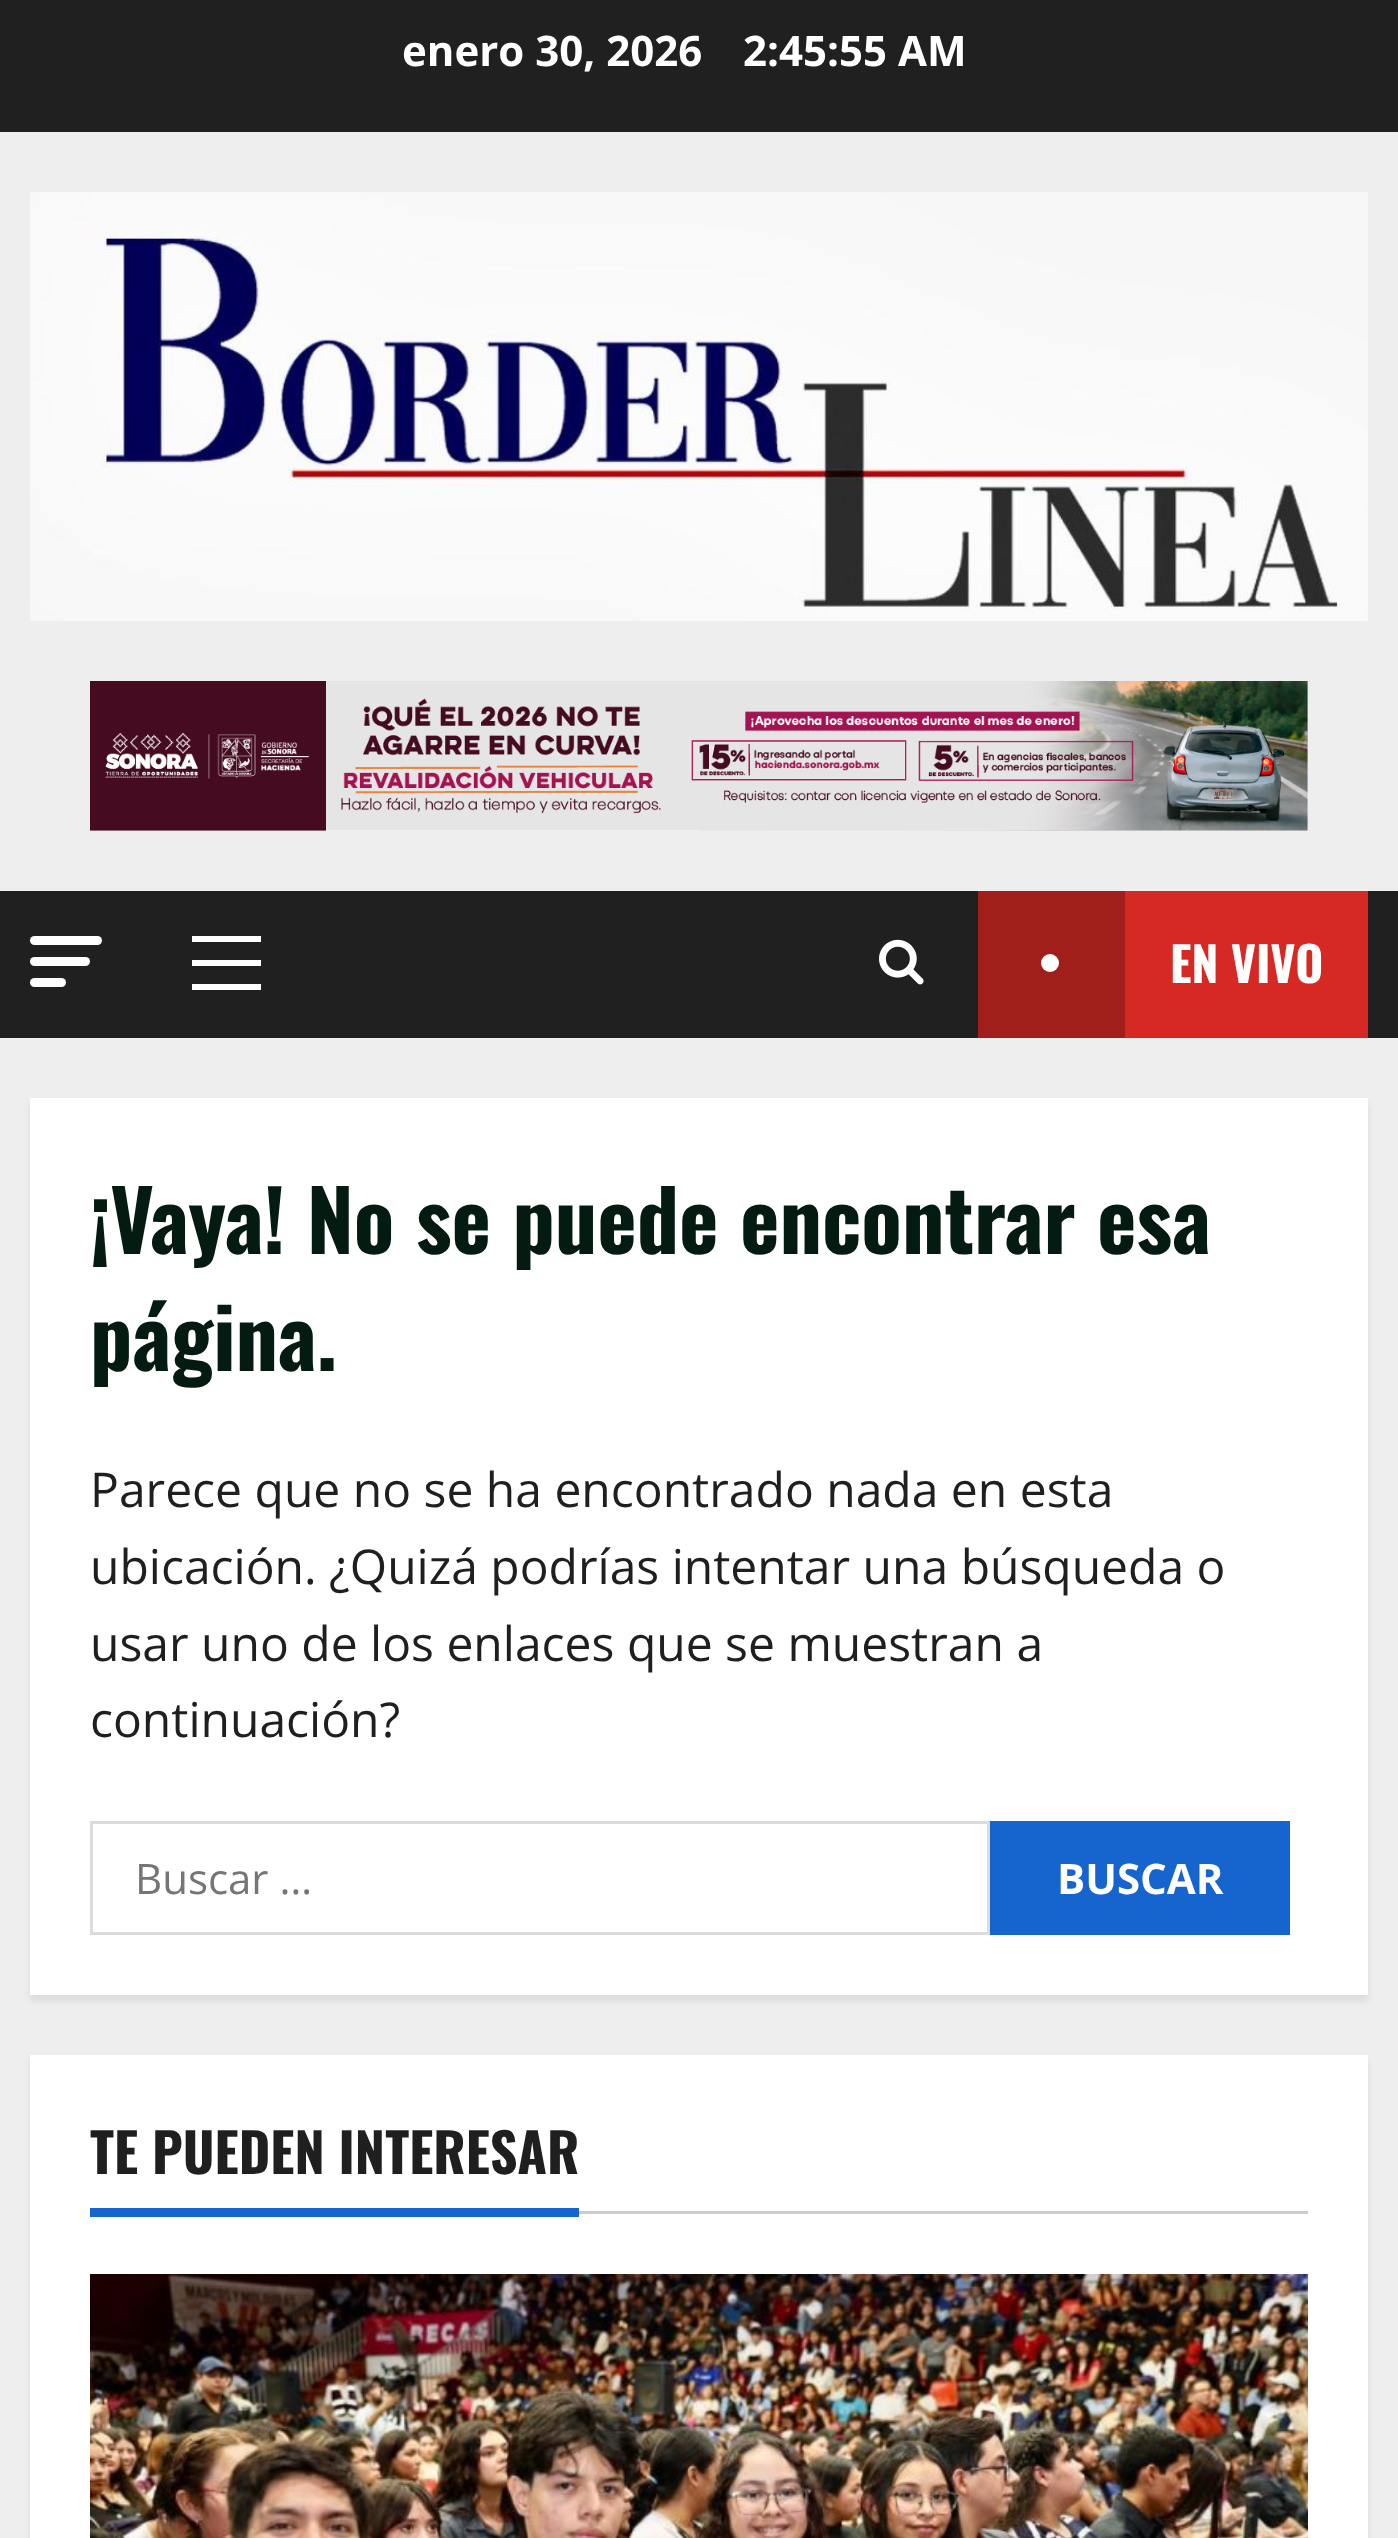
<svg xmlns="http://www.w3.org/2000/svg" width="1398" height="2538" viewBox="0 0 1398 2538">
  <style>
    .t1 { font: bold 42px Open Sans; fill: #fff; }
    .t2 { font: bold 48px Oswald; fill: #fff; }
    .t3 { font: bold 84px Oswald; fill: #031b11; }
    .t4 { font: 48px Open Sans; fill: #1f1f1f; }
    .t5 { font: 42px Open Sans; fill: #757575; }
    .t6 { font: bold 54px Oswald; fill: #1f1f1f; }
  </style>
  <rect width="100%" height="100%" fill="#eee"/>
  <rect x="0" y="0" width="1398" height="132" fill="#202020"/>
  <text x="402" y="66" class="t1">enero 30, 2026</text>
  <text x="743" y="66" class="t1">2:45:55 AM</text>
  <image x="30" y="192" width="1338" height="429" href="images/1.png"/>
  <image x="90" y="681" width="1218" height="150" href="images/2.png"/>
  <rect x="0" y="891" width="1398" height="147" fill="#202020"/>
  <rect x="30" y="936" width="72" height="9" rx="4.5" fill="#fff"/>
  <rect x="30" y="957" width="60" height="9" rx="4.5" fill="#fff"/>
  <rect x="30" y="978" width="36" height="9" rx="4.5" fill="#fff"/>
  <rect x="192" y="960" width="69" height="6" fill="#fff"/>
  <rect x="192" y="936" width="69" height="6" fill="#fff"/>
  <rect x="192" y="984" width="69" height="6" fill="#fff"/>
  <image x="879" y="939" width="45" height="46" href="images/3.png"/>
  <rect x="1125" y="891" width="243" height="147" fill="#d72924"/>
  <rect x="978" y="891" width="147" height="147" fill="#a11f1b"/>
  <circle cx="1050" cy="963" r="9" fill="#fff"/>
  <text x="1170" y="983" class="t2">EN VIVO</text>
  <rect x="30" y="1104" width="1338" height="897" fill="#00000014" filter="blur(3px)"/>
  <rect x="30" y="1098" width="1338" height="897" fill="#fff"/>
  <text x="90" y="1254" class="t3">¡Vaya! No se puede encontrar esa</text>
  <text x="90" y="1371" class="t3">página.</text>
  <text x="90" y="1507" class="t4">Parece que no se ha encontrado nada en esta</text>
  <text x="90" y="1584" class="t4">ubicación. ¿Quizá podrías intentar una búsqueda o</text>
  <text x="90" y="1661" class="t4">usar uno de los enlaces que se muestran a</text>
  <text x="90" y="1737" class="t4">continuación?</text>
  <rect x="91.5" y="1822.5" width="897" height="111" fill="none" stroke="#dcdcdc" stroke-width="3"/>
  <text x="135" y="1894" class="t5">Buscar …</text>
  <rect x="990" y="1821" width="300" height="114" fill="#1665cf"/>
  <text x="1057" y="1894" class="t1">BUSCAR</text>
  <rect x="30" y="2061" width="1338" height="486" fill="#00000014" filter="blur(3px)"/>
  <rect x="30" y="2055" width="1338" height="483" fill="#fff"/>
  <rect x="579" y="2211" width="729" height="3" fill="#ccc"/>
  <text x="90" y="2174" class="t6">TE PUEDEN INTERESAR</text>
  <rect x="90" y="2208" width="489" height="9" fill="#1665cf"/>
  <image x="90" y="2274" width="1218" height="264" href="images/4.png"/>
</svg>
